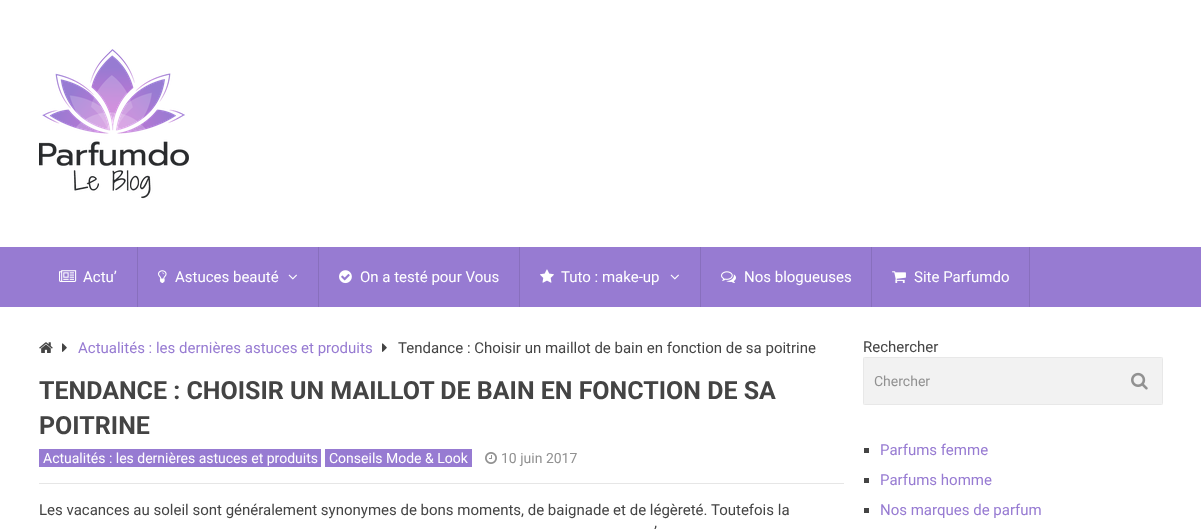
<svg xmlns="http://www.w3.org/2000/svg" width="1201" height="529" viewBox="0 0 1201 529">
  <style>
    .t1 { font: 15px Roboto; fill: #fff; }
    .t2 { font: 15px Roboto; fill: #977bd2; }
    .t3 { font: 15px Roboto; fill: #444; }
    .t4 { font: bold 25px Roboto; fill: #444; }
    .t5 { font: 14px Roboto; fill: #fff; }
    .t6 { font: 14px Roboto; fill: #919191; }
  </style>
  <rect width="100%" height="100%" fill="#fff"/>
  <image x="39" y="49" width="150" height="150" href="images/1.png"/>
  <rect x="0" y="247" width="1201" height="60" fill="#977bd2"/>
  <rect x="137" y="247" width="1" height="60" fill="#886fbd"/>
  <image x="59" y="270" width="18" height="12" href="images/2.png"/>
  <text x="83" y="282" class="t1">Actu’</text>
  <rect x="318" y="247" width="1" height="60" fill="#886fbd"/>
  <image x="158" y="270" width="9" height="13" href="images/3.png"/>
  <text x="175" y="282" class="t1">Astuces beauté</text>
  <image x="288" y="274" width="9" height="6" href="images/4.png"/>
  <rect x="519" y="247" width="1" height="60" fill="#886fbd"/>
  <image x="339" y="270" width="13" height="14" href="images/5.png"/>
  <text x="360" y="282" class="t1">On a testé pour Vous</text>
  <rect x="700" y="247" width="1" height="60" fill="#886fbd"/>
  <image x="540" y="269" width="14" height="14" href="images/6.png"/>
  <text x="561" y="282" class="t1">Tuto : make-up</text>
  <image x="670" y="274" width="9" height="6" href="images/4.png"/>
  <rect x="871" y="247" width="1" height="60" fill="#886fbd"/>
  <image x="721" y="271" width="15" height="12" href="images/7.png"/>
  <text x="744" y="282" class="t1">Nos blogueuses</text>
  <rect x="1029" y="247" width="1" height="60" fill="#886fbd"/>
  <image x="892" y="271" width="14" height="12" href="images/8.png"/>
  <text x="914" y="282" class="t1">Site Parfumdo</text>
  <image x="39" y="342" width="14" height="11" href="images/9.png"/>
  <image x="62" y="343" width="5" height="9" href="images/10.png"/>
  <text x="78" y="353" class="t2">Actualités : les dernières astuces et produits</text>
  <image x="382" y="343" width="5" height="9" href="images/10.png"/>
  <text x="398" y="353" class="t3">Tendance : Choisir un maillot de bain en fonction de sa poitrine</text>
  <rect x="39" y="483" width="805" height="1" fill="#e6e6e6"/>
  <text x="39" y="399" class="t4">TENDANCE : CHOISIR UN MAILLOT DE BAIN EN FONCTION DE SA</text>
  <text x="39" y="434" class="t4">POITRINE</text>
  <rect x="39" y="449" width="282" height="18" fill="#977bd2"/>
  <text x="43" y="463" class="t5">Actualités : les dernières astuces et produits</text>
  <rect x="325" y="449" width="147" height="18" fill="#977bd2"/>
  <text x="329" y="463" class="t5">Conseils Mode &amp; Look</text>
  <image x="485" y="452" width="12" height="12" href="images/11.png"/>
  <text x="501" y="463" class="t6">10 juin 2017</text>
  <text x="39" y="515" class="t3">Les vacances au soleil sont généralement synonymes de bons moments, de baignade et de légèreté. Toutefois la</text>
  <text x="654" y="537" class="t3">’</text>
  <text x="863" y="352" class="t3">Rechercher</text>
  <rect x="863" y="357" width="300" height="48" rx="3" fill="#f2f2f2"/>
  <rect x="863.5" y="357.5" width="299" height="47" fill="none" stroke="#0000000a"/>
  <text x="874" y="386" class="t6">Chercher</text>
  <image x="1131" y="372" width="17" height="18" href="images/12.png"/>
  <rect x="864" y="448" width="5" height="5" fill="#444"/>
  <text x="880" y="455" class="t2">Parfums femme</text>
  <rect x="864" y="478" width="5" height="5" fill="#444"/>
  <text x="880" y="485" class="t2">Parfums homme</text>
  <rect x="864" y="508" width="5" height="5" fill="#444"/>
  <text x="880" y="515" class="t2">Nos marques de parfum</text>
</svg>
